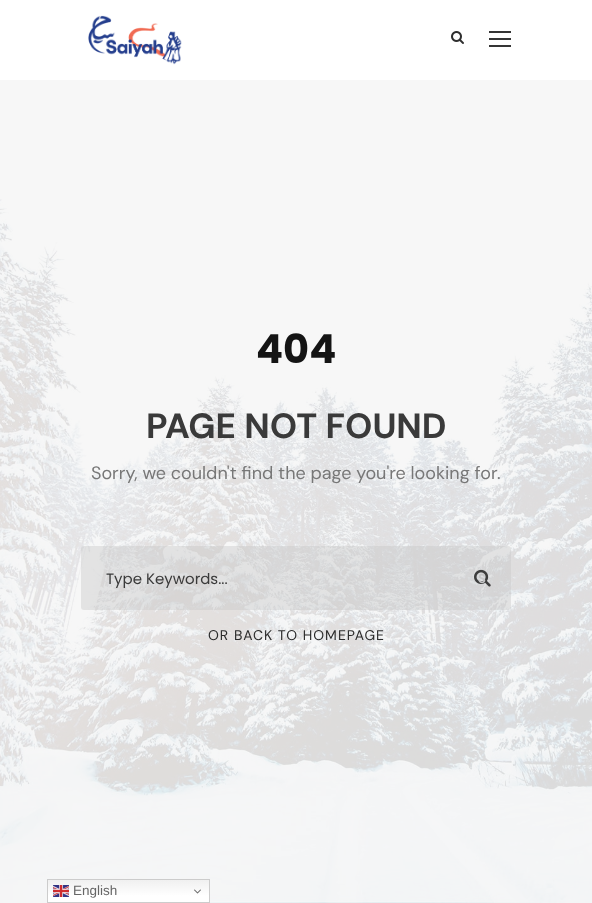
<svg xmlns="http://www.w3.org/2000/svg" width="592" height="903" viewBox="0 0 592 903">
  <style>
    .t1 { font: bold 40px Poppins; fill: #141414; }
    .t2 { font: bold 35px DM Sans; fill: #3a3a3a; }
    .t3 { font: 18px DM Sans; fill: #777; }
    .t4 { font: 15px Poppins; fill: #3a3a3a; }
    .t5 { font: bold 13px DM Sans; letter-spacing: 1px; fill: #c5c5c6; }
    .t6 { font: 14px DM Sans; letter-spacing: 1px; fill: #2b2b2b; }
    .t7 { font: 13.5px Liberation Sans; fill: #666; }
  </style>
  <defs>
    <linearGradient id="g1" gradientUnits="userSpaceOnUse" x1="129" y1="879" x2="129" y2="903"><stop offset="0" stop-color="#efefef"/><stop offset="0.7" stop-color="#fff"/></linearGradient>
  </defs>
  <rect width="100%" height="100%" fill="#fff"/>
  <image x="88" y="15" width="94" height="50" href="images/1.png"/>
  <image x="451" y="31" width="13" height="13" href="images/2.png"/>
  <rect x="489" y="31" width="22" height="2" fill="#353535"/>
  <rect x="489" y="38" width="22" height="2" fill="#353535"/>
  <rect x="489" y="45" width="22" height="2" fill="#353535"/>
  <rect x="0" y="80" width="592" height="823" fill="#f7f7f7"/>
  <image x="0" y="199" width="592" height="704" href="images/3.png"/>
  <text x="256" y="363" class="t1">404</text>
  <text x="146" y="438" class="t2">PAGE NOT FOUND</text>
  <text x="91" y="479" class="t3">Sorry, we couldn't find the page you're looking for.</text>
  <rect x="81" y="546" width="430" height="64" rx="3" fill="#c6c6c666"/>
  <text x="106" y="584" class="t4">Type Keywords...</text>
  <image x="474" y="569" width="17" height="18" href="images/4.png"/>
  <text x="478" y="583" class="t5">S</text>
  <text x="208" y="640" class="t6">OR BACK TO HOMEPAGE</text>
  <rect x="48" y="880" width="161" height="22" fill="url(#g1)"/>
  <rect x="47.5" y="879.5" width="162" height="23" fill="none" stroke="#ccc"/>
  <image x="53" y="885" width="16" height="12" href="images/5.png"/>
  <text x="73" y="895" class="t7">English</text>
  <image x="194" y="889" width="7" height="5" href="images/6.png"/>
</svg>
